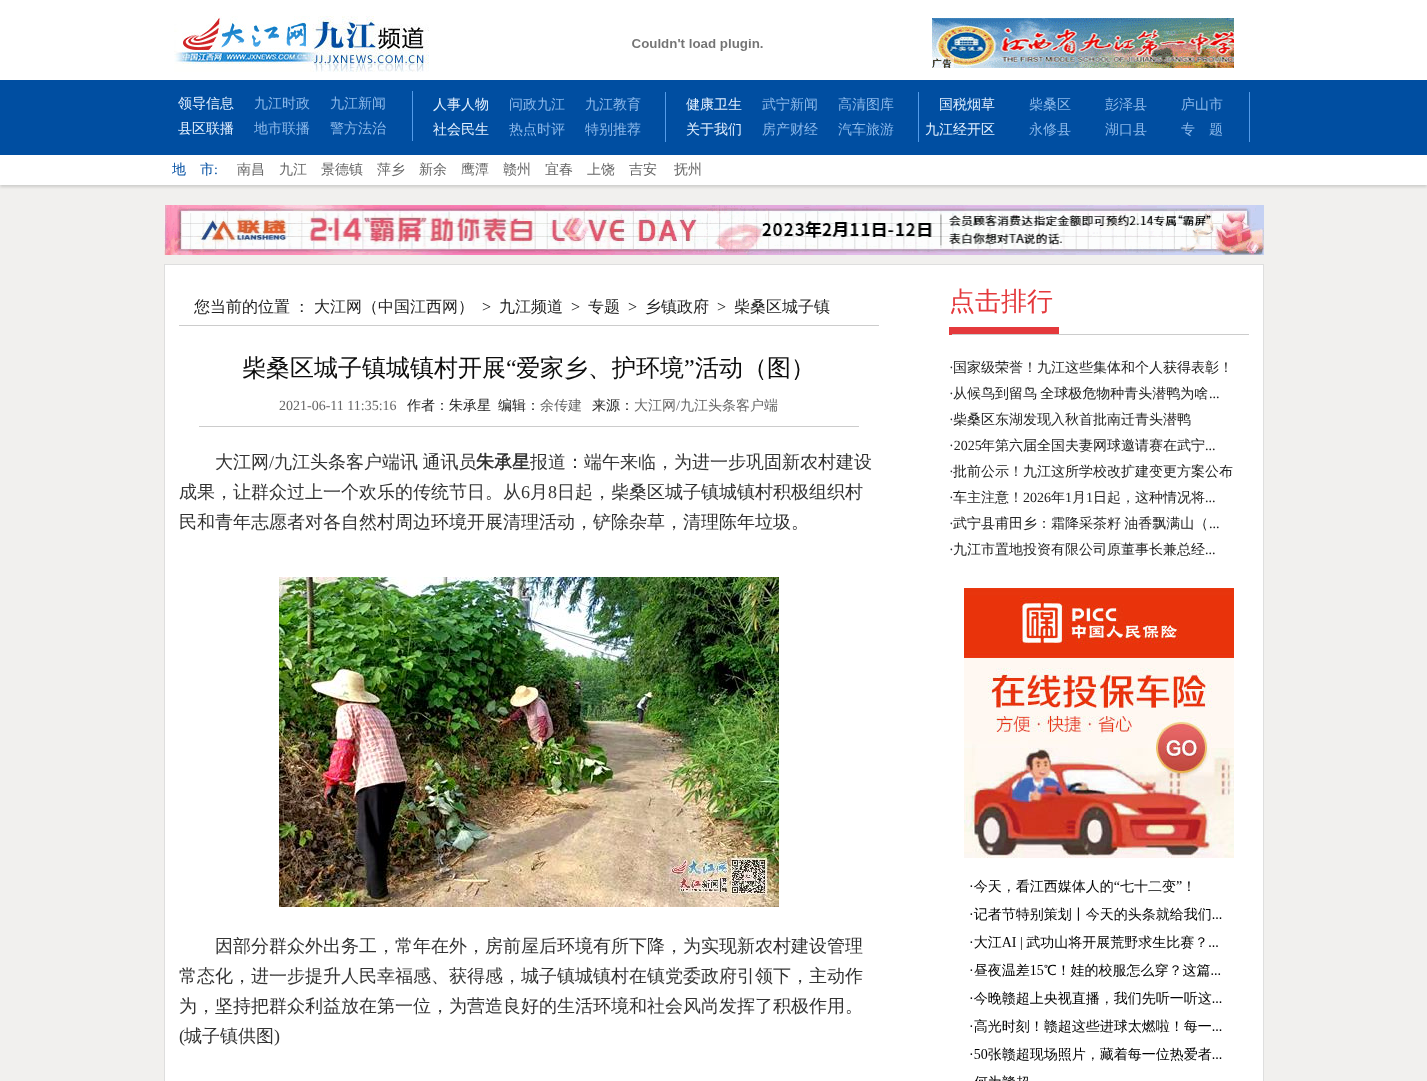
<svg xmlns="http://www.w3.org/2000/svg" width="1427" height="1081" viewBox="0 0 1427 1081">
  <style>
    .t1 { font: 500 14px WenQuanYi Zen Hei; fill: #e2f0ff; }
    .t2 { font: 500 14px WenQuanYi Zen Hei; fill: #8bb9eb; }
    .t3 { font: 500 14px WenQuanYi Zen Hei; fill: #004ea2; }
    .t4 { font: 14px Liberation Serif; fill: #004ea2; }
    .t5 { font: 500 14px WenQuanYi Zen Hei; fill: #666; }
    .t6 { font: 500 16px WenQuanYi Zen Hei; fill: #222; }
    .t7 { font: 16px Liberation Serif; fill: #222; }
    .t8 { font: 500 24px WenQuanYi Zen Hei; fill: #0c0c0c; }
    .t9 { font: 24px Liberation Serif; fill: #0c0c0c; }
    .t10 { font: 14px Liberation Serif; fill: #666; }
    .t11 { font: 500 14px WenQuanYi Zen Hei; fill: #222; }
    .t12 { font: 500 18px WenQuanYi Zen Hei; fill: #333; }
    .t13 { font: 18px Liberation Serif; fill: #333; }
    .t14 { font: bold 18px WenQuanYi Zen Hei; fill: #333; }
    .t15 { font: 500 26px WenQuanYi Zen Hei; fill: #e4393c; }
    .t16 { font: 14px Liberation Serif; fill: #222; }
  </style>
  <rect width="100%" height="100%" fill="#f1f0ee"/>
  <rect x="0" y="0" width="1427" height="80" fill="#fff"/>
  <image x="174" y="16" width="255" height="56" href="images/1.png"/>
  <image x="632" y="39" width="131" height="12" href="images/2.png"/>
  <image x="932" y="18" width="302" height="50" href="images/3.png"/>
  <rect x="0" y="157" width="1427" height="30" fill="#00000026" filter="blur(1.5px)"/>
  <rect x="0" y="80" width="1427" height="75" fill="#004ea1"/>
  <rect x="412" y="91" width="1" height="50" fill="#549cea"/>
  <text x="178" y="108" class="t1">领导信息</text>
  <text x="254" y="108" class="t2">九江时政</text>
  <text x="330" y="108" class="t2">九江新闻</text>
  <text x="178" y="133" class="t1">县区联播</text>
  <text x="254" y="133" class="t2">地市联播</text>
  <text x="330" y="133" class="t2">警方法治</text>
  <rect x="665" y="92" width="1" height="50" fill="#549cea"/>
  <text x="433" y="109" class="t1">人事人物</text>
  <text x="509" y="109" class="t2">问政九江</text>
  <text x="585" y="109" class="t2">九江教育</text>
  <text x="433" y="134" class="t1">社会民生</text>
  <text x="509" y="134" class="t2">热点时评</text>
  <text x="585" y="134" class="t2">特别推荐</text>
  <rect x="918" y="92" width="1" height="50" fill="#549cea"/>
  <text x="686" y="109" class="t1">健康卫生</text>
  <text x="762" y="109" class="t2">武宁新闻</text>
  <text x="838" y="109" class="t2">高清图库</text>
  <text x="686" y="134" class="t1">关于我们</text>
  <text x="762" y="134" class="t2">房产财经</text>
  <text x="838" y="134" class="t2">汽车旅游</text>
  <rect x="1249" y="92" width="1" height="50" fill="#549cea"/>
  <text x="939" y="109" class="t1">国税烟草</text>
  <text x="1029" y="109" class="t2">柴桑区</text>
  <text x="1105" y="109" class="t2">彭泽县</text>
  <text x="1181" y="109" class="t2">庐山市</text>
  <text x="925" y="134" class="t1">九江经开区</text>
  <text x="1029" y="134" class="t2">永修县</text>
  <text x="1105" y="134" class="t2">湖口县</text>
  <text x="1181" y="134" class="t2">专　题</text>
  <rect x="0" y="155" width="1427" height="30" fill="#fff"/>
  <text x="172" y="174" class="t3">地　市</text>
  <text x="214" y="174" class="t4">:</text>
  <text x="237" y="174" class="t5">南昌</text>
  <text x="279" y="174" class="t5">九江</text>
  <text x="321" y="174" class="t5">景德镇</text>
  <text x="377" y="174" class="t5">萍乡</text>
  <text x="419" y="174" class="t5">新余</text>
  <text x="461" y="174" class="t5">鹰潭</text>
  <text x="503" y="174" class="t5">赣州</text>
  <text x="545" y="174" class="t5">宜春</text>
  <text x="587" y="174" class="t5">上饶</text>
  <text x="629" y="174" class="t5">吉安</text>
  <text x="674" y="174" class="t5">抚州</text>
  <image x="164" y="205" width="1100" height="50" href="images/4.png"/>
  <rect x="164.5" y="264.5" width="1099" height="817" fill="#fff" stroke="#dedede"/>
  <rect x="179" y="325" width="700" height="1" fill="#ccc"/>
  <text x="194" y="312" word-spacing="-1" class="t6">您当前的位置 ：</text>
  <text x="314" y="312" class="t6">大江网（中国江西网）</text>
  <text x="482" y="312" class="t7">&gt;</text>
  <text x="499" y="312" class="t6">九江频道</text>
  <text x="571" y="312" class="t7">&gt;</text>
  <text x="588" y="312" class="t6">专题</text>
  <text x="628" y="312" class="t7">&gt;</text>
  <text x="645" y="312" class="t6">乡镇政府</text>
  <text x="717" y="312" class="t7">&gt;</text>
  <text x="734" y="312" class="t6">柴桑区城子镇</text>
  <rect x="199" y="426" width="660" height="1" fill="#ccc"/>
  <text x="242" y="376" class="t8">柴桑区城子镇城镇村开展</text>
  <text x="506" y="376" class="t9">“</text>
  <text x="516" y="376" class="t8">爱家乡、护环境</text>
  <text x="684" y="376" class="t9">”</text>
  <text x="695" y="376" class="t8">活动（图）</text>
  <text x="279" y="410" class="t10">2021-06-11 11:35:16</text>
  <text x="407" y="410" class="t11">作者：朱承星</text>
  <text x="498" y="410" class="t11">编辑：</text>
  <text x="540" y="410" class="t5">余传建</text>
  <text x="592" y="410" class="t11">来源：</text>
  <text x="634" y="410" class="t5">大江网</text>
  <text x="676" y="410" class="t10">/</text>
  <text x="680" y="410" class="t5">九江头条客户端</text>
  <text x="215" y="468" class="t12">大江网</text>
  <text x="269" y="468" class="t13">/</text>
  <text x="274" y="468" word-spacing="-1" class="t12">九江头条客户端讯 通讯员</text>
  <text x="476" y="468" class="t14">朱承星</text>
  <text x="530" y="468" class="t12">报道：端午来临，为进一步巩固新农村建设</text>
  <text x="179" y="498" class="t12">成果，让群众过上一个欢乐的传统节日。从</text>
  <text x="521" y="498" class="t13">6</text>
  <text x="530" y="498" class="t12">月</text>
  <text x="548" y="498" class="t13">8</text>
  <text x="557" y="498" class="t12">日起，柴桑区城子镇城镇村积极组织村</text>
  <text x="179" y="528" class="t12">民和青年志愿者对各自然村周边环境开展清理活动，铲除杂草，清理陈年垃圾。</text>
  <image x="279" y="577" width="500" height="330" href="images/5.png"/>
  <text x="215" y="952" class="t12">因部分群众外出务工，常年在外，房前屋后环境有所下降，为实现新农村建设管理</text>
  <text x="179" y="982" class="t12">常态化，进一步提升人民幸福感、获得感，城子镇城镇村在镇党委政府引领下，主动作</text>
  <text x="179" y="1012" class="t12">为，坚持把群众利益放在第一位，为营造良好的生活环境和社会风尚发挥了积极作用。</text>
  <text x="179" y="1042" class="t13">(</text>
  <text x="184" y="1042" class="t12">城子镇供图</text>
  <text x="274" y="1042" class="t13">)</text>
  <image x="949" y="327" width="300" height="8" href="images/6.png"/>
  <text x="949" y="310" class="t15">点击排行</text>
  <text x="949" y="372" class="t16">·</text>
  <text x="953" y="372" class="t11">国家级荣誉！九江这些集体和个人获得表彰！</text>
  <text x="949" y="398" class="t16">·</text>
  <text x="953" y="398" word-spacing="-1" class="t11">从候鸟到留鸟 全球极危物种青头潜鸭为啥</text>
  <text x="1209" y="398" class="t16">...</text>
  <text x="949" y="424" class="t16">·</text>
  <text x="953" y="424" class="t11">柴桑区东湖发现入秋首批南迁青头潜鸭</text>
  <text x="949" y="450" class="t16">·2025</text>
  <text x="981" y="450" class="t11">年第六届全国夫妻网球邀请赛在武宁</text>
  <text x="1205" y="450" class="t16">...</text>
  <text x="949" y="476" class="t16">·</text>
  <text x="953" y="476" class="t11">批前公示！九江这所学校改扩建变更方案公布</text>
  <text x="949" y="502" class="t16">·</text>
  <text x="953" y="502" class="t11">车主注意！</text>
  <text x="1023" y="502" class="t16">2026</text>
  <text x="1051" y="502" class="t11">年</text>
  <text x="1065" y="502" class="t16">1</text>
  <text x="1072" y="502" class="t11">月</text>
  <text x="1086" y="502" class="t16">1</text>
  <text x="1093" y="502" class="t11">日起，这种情况将</text>
  <text x="1205" y="502" class="t16">...</text>
  <text x="949" y="528" class="t16">·</text>
  <text x="953" y="528" word-spacing="-1" class="t11">武宁县甫田乡：霜降采茶籽 油香飘满山（</text>
  <text x="1209" y="528" class="t16">...</text>
  <text x="949" y="554" class="t16">·</text>
  <text x="953" y="554" class="t11">九江市置地投资有限公司原董事长兼总经</text>
  <text x="1205" y="554" class="t16">...</text>
  <image x="964" y="588" width="270" height="270" href="images/7.png"/>
  <image x="970" y="879" width="252" height="202" href="images/8.png"/>
</svg>
